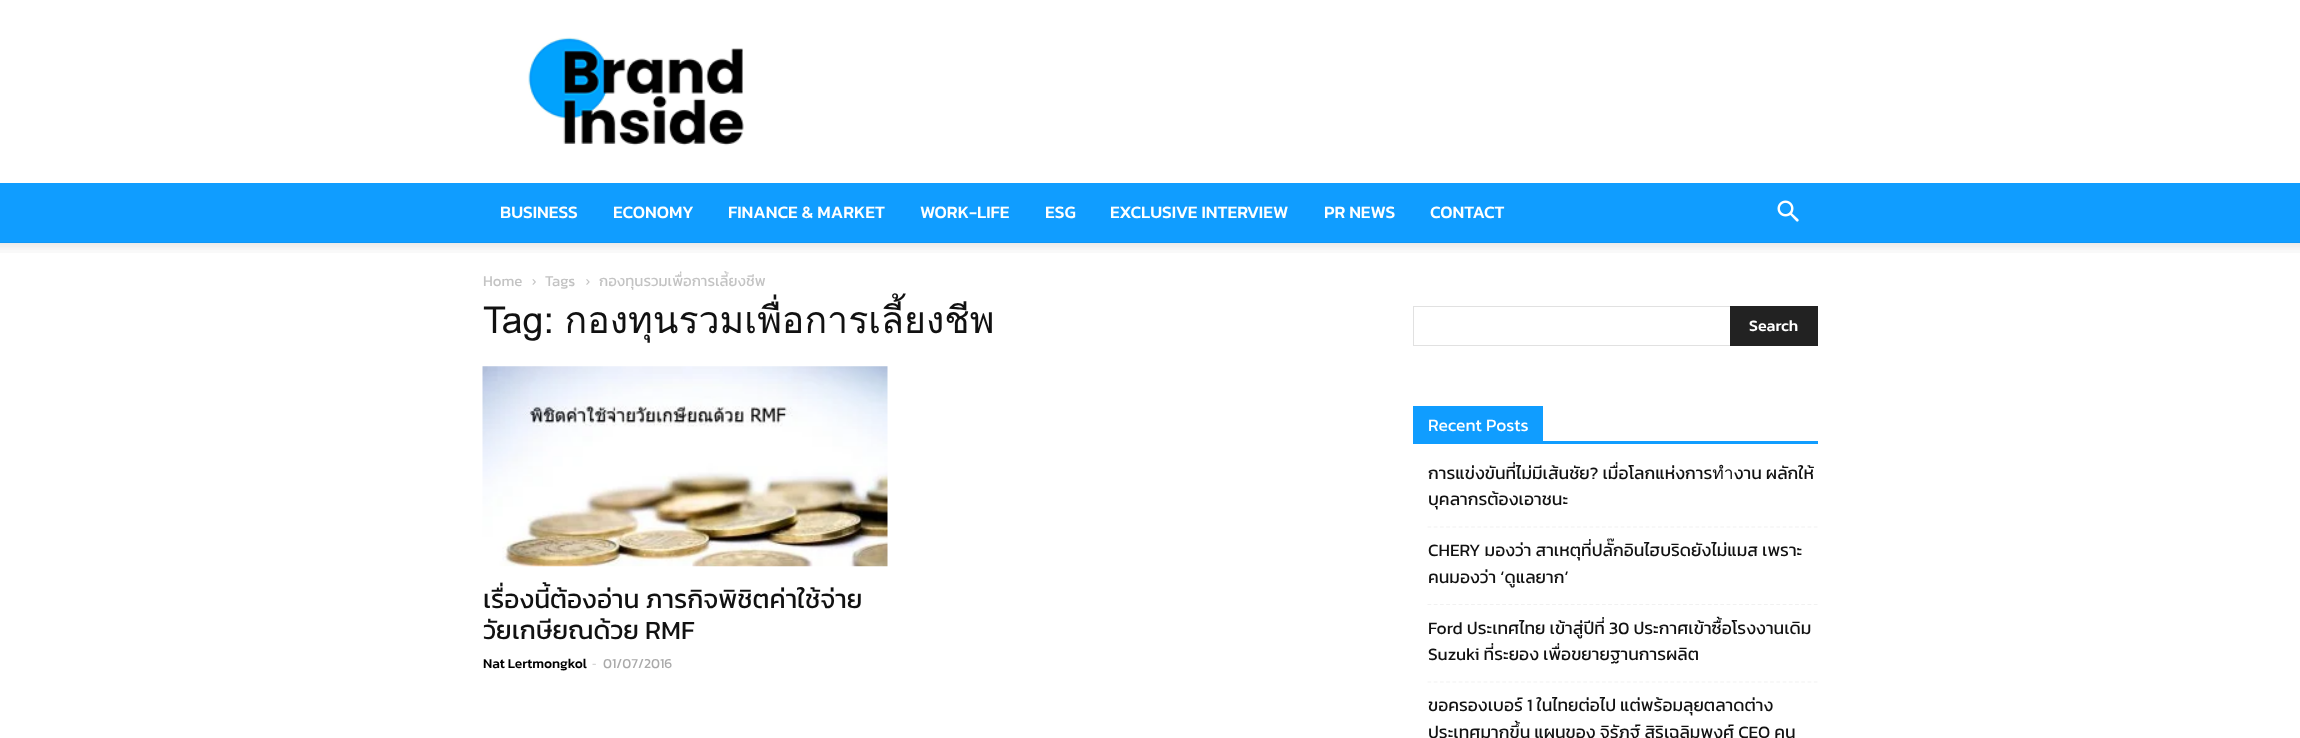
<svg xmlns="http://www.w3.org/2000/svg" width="2300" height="738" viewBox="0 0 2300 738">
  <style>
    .t1 { font: 500 17.5px Kanit; fill: #fff; }
    .t2 { font: 15px Kanit; fill: #c3c3c3; }
    .t3 { font: 37.5px Loma; fill: #111; }
    .t4 { font: 26.25px Kanit; fill: #111; }
    .t5 { font: 500 13.75px Kanit; fill: #000; }
    .t6 { font: 13.75px Open Sans; fill: #ccc; }
    .t7 { font: 13.75px Kanit; fill: #aaa; }
    .t8 { font: 500 16px Kanit; fill: #fff; }
    .t9 { font: 17.5px Kanit; fill: #fff; }
    .t10 { font: 17.5px Kanit; fill: #111; }
  </style>
  <rect width="100%" height="100%" fill="#fff"/>
  <image x="528" y="37" width="216" height="109" href="images/1.png"/>
  <rect x="0" y="183" width="2300" height="60" fill="#109dff"/>
  <text x="500" y="218" class="t1">BUSINESS</text>
  <text x="613" y="218" class="t1">ECONOMY</text>
  <text x="728" y="218" class="t1">FINANCE &amp; MARKET</text>
  <text x="920" y="218" class="t1">WORK-LIFE</text>
  <text x="1045" y="218" class="t1">ESG</text>
  <text x="1110" y="218" class="t1">EXCLUSIVE INTERVIEW</text>
  <text x="1324" y="218" class="t1">PR NEWS</text>
  <text x="1430" y="218" class="t1">CONTACT</text>
  <image x="1777" y="200" width="22" height="22" href="images/2.png"/>
  <image x="0" y="242" width="2300" height="11" href="images/3.png"/>
  <text x="483" y="286" class="t2">Home</text>
  <image x="532" y="279" width="4" height="6" href="images/4.png"/>
  <text x="545" y="286" class="t2">Tags</text>
  <image x="586" y="279" width="4" height="6" href="images/5.png"/>
  <text x="599" y="286" class="t2">กองทุนรวมเพื่อการเลี้ยงชีพ</text>
  <text x="483" y="333" word-spacing="-2" class="t3">Tag: กองทุนรวมเพื่อการเลี้ยงชีพ</text>
  <image x="482" y="366" width="406" height="201" href="images/6.png"/>
  <text x="483" y="608" class="t4">เรื่องนี้ต้องอ่าน ภารกิจพิชิตค่าใช้จ่าย</text>
  <text x="483" y="639" class="t4">วัยเกษียณด้วย RMF</text>
  <text x="483" y="668" class="t5">Nat Lertmongkol</text>
  <text x="592" y="668" class="t6">-</text>
  <text x="603" y="668" class="t7">01/07/2016</text>
  <rect x="1413" y="306" width="317" height="1" fill="#e1e1e1"/>
  <rect x="1413" y="345" width="317" height="1" fill="#e1e1e1"/>
  <rect x="1413" y="306" width="1" height="40" fill="#e1e1e1"/>
  <rect x="1730" y="306" width="88" height="40" fill="#222"/>
  <text x="1749" y="331" class="t8">Search</text>
  <rect x="1413" y="441" width="405" height="3" fill="#109dff"/>
  <rect x="1413" y="406" width="130" height="35" fill="#109dff"/>
  <text x="1428" y="431" class="t9">Recent Posts</text>
  <path d="M1427.5 527H1817.5" fill="none" stroke="#f1f1f1" stroke-width="1.2" stroke-dasharray="3.75 2.48"/>
  <text x="1428" y="479" class="t10">การแข่งขันที่ไม่มีเส้นชัย? เมื่อโลกแห่งการทำงาน ผลักให้</text>
  <text x="1428" y="505" class="t10">บุคลากรต้องเอาชนะ</text>
  <path d="M1427.5 604.5H1817.5" fill="none" stroke="#f1f1f1" stroke-width="1.2" stroke-dasharray="3.75 2.48"/>
  <text x="1428" y="556" class="t10">CHERY มองว่า สาเหตุที่ปลั๊กอินไฮบริดยังไม่แมส เพราะ</text>
  <text x="1428" y="583" class="t10">คนมองว่า ‘ดูแลยาก’</text>
  <path d="M1427.5 682H1817.5" fill="none" stroke="#f1f1f1" stroke-width="1.2" stroke-dasharray="3.75 2.48"/>
  <text x="1428" y="634" class="t10">Ford ประเทศไทย เข้าสู่ปีที่ 30 ประกาศเข้าซื้อโรงงานเดิม</text>
  <text x="1428" y="660" class="t10">Suzuki ที่ระยอง เพื่อขยายฐานการผลิต</text>
  <text x="1428" y="711" class="t10">ขอครองเบอร์ 1 ในไทยต่อไป แต่พร้อมลุยตลาดต่าง</text>
  <text x="1428" y="738" class="t10">ประเทศมากขึ้น แผนของ จิรัฏฐ์ สิริเฉลิมพงศ์ CEO คน</text>
</svg>
